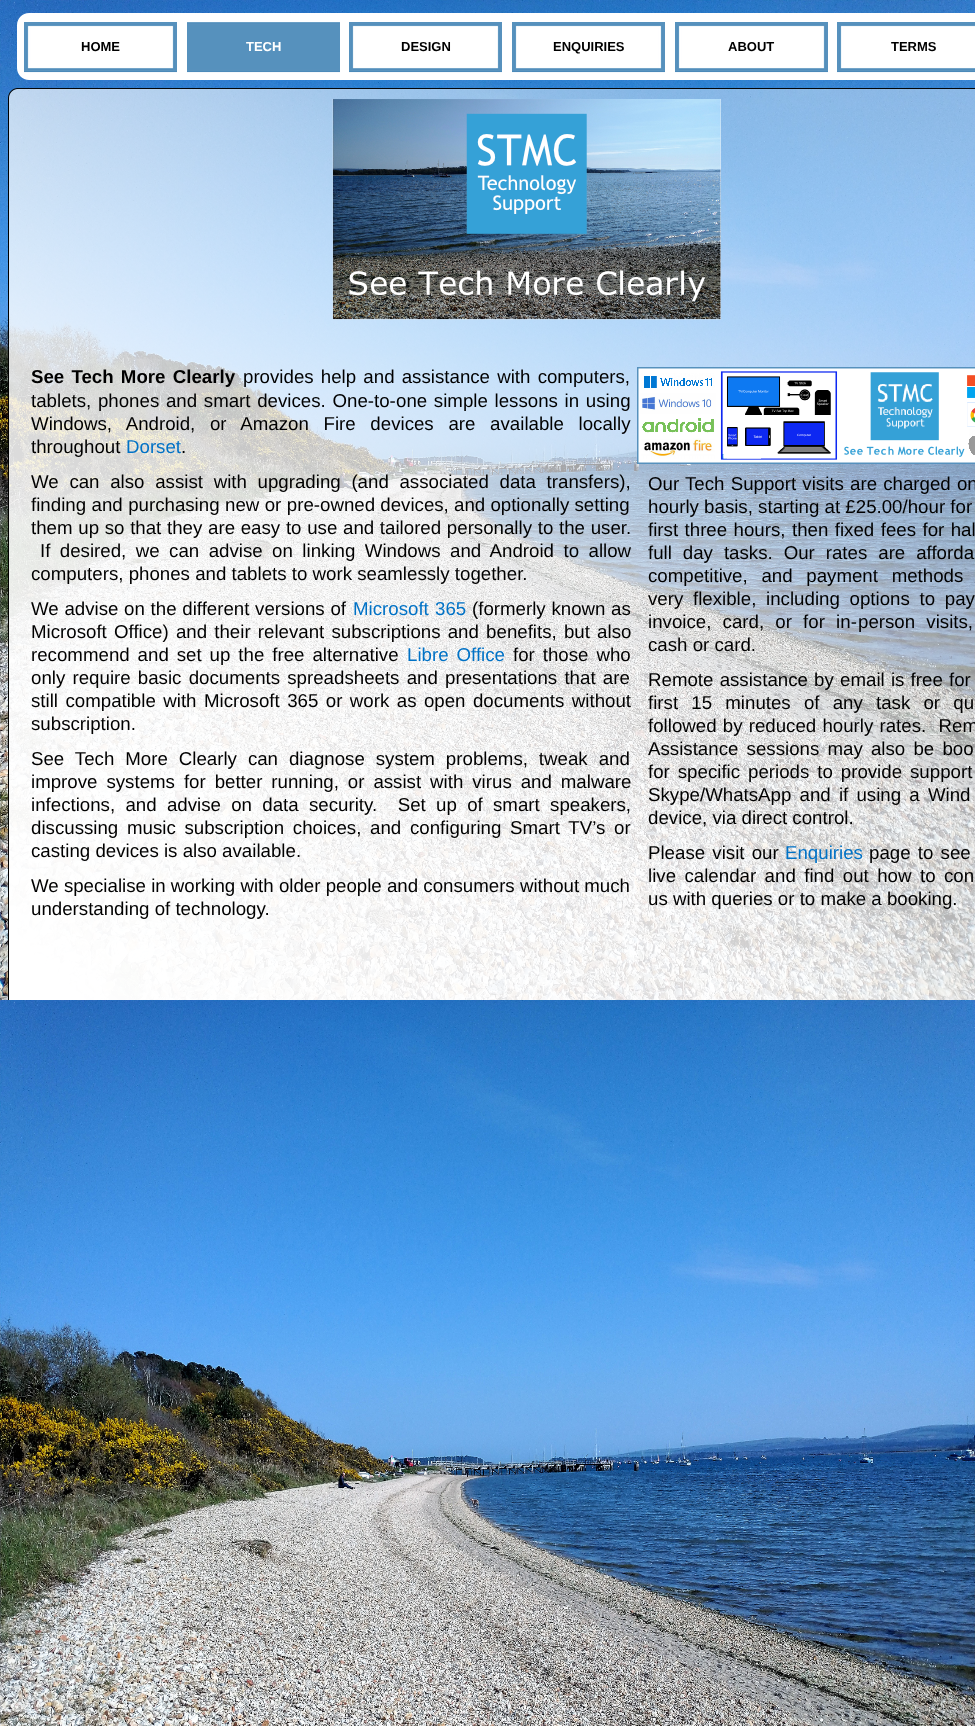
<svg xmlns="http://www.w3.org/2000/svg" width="975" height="1726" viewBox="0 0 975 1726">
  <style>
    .t1 { font: bold 13px Liberation Sans; fill: #000; }
    .t2 { font: bold 13px Liberation Sans; fill: #fff; }
    .t3 { font: bold 18.7px Liberation Sans; fill: #000; }
    .t4 { font: 18.7px Liberation Sans; fill: #000; }
    .t5 { font: 18.7px Liberation Sans; fill: #0072c6; }
  </style>
  <rect width="100%" height="100%" fill="#fff"/>
  <image x="0" y="0" width="975" height="1726" href="images/1.png"/>
  <image x="17" y="13" width="958" height="67" href="images/2.png"/>
  <image x="24" y="22" width="153" height="51" href="images/3.png"/>
  <text x="81" y="51" class="t1">HOME</text>
  <image x="187" y="22" width="153" height="51" href="images/4.png"/>
  <text x="246" y="51" class="t2">TECH</text>
  <image x="349" y="22" width="153" height="51" href="images/3.png"/>
  <text x="401" y="51" class="t1">DESIGN</text>
  <image x="512" y="22" width="153" height="51" href="images/3.png"/>
  <text x="553" y="51" class="t1">ENQUIRIES</text>
  <image x="675" y="22" width="153" height="51" href="images/3.png"/>
  <text x="728" y="51" class="t1">ABOUT</text>
  <image x="837" y="22" width="138" height="51" href="images/5.png"/>
  <text x="891" y="51" class="t1">TERMS</text>
  <image x="8" y="88" width="967" height="912" href="images/6.png"/>
  <text x="31" y="383" word-spacing="2" class="t3">See Tech More Clearly</text>
  <text x="243" y="383" word-spacing="2" class="t4">provides help and assistance with computers,</text>
  <text x="31" y="407" word-spacing="1.5" class="t4">tablets, phones and smart devices. One-</text>
  <text x="374" y="407" class="t4">to-</text>
  <text x="396" y="407" word-spacing="1.5" class="t4">one simple lessons in using</text>
  <text x="31" y="430" word-spacing="9.5" class="t4">Windows, Android, or Amazon Fire devices are available locally</text>
  <text x="31" y="453" class="t4">throughout</text>
  <text x="126" y="453" class="t5">Dorset</text>
  <text x="181" y="453" class="t4">.</text>
  <text x="31" y="488" word-spacing="5.5" class="t4">We can also assist with upgrading (and associated data transfers),</text>
  <text x="31" y="511" word-spacing="0.25" class="t4">finding and purchasing new or pre-</text>
  <text x="320" y="511" class="t4">owned devices, and optionally setting</text>
  <text x="31" y="534" word-spacing="0.5" class="t4">them up so that they are easy to use and tailored personally to the user.</text>
  <text x="40" y="557" word-spacing="4.25" class="t4">If desired, we can advise on linking Windows and Android to allow</text>
  <text x="31" y="580" class="t4">computers, phones and tablets to work seamlessly together.</text>
  <text x="31" y="615" word-spacing="0.5" class="t4">We advise on the different versions of</text>
  <text x="353" y="615" word-spacing="1" class="t5">Microsoft 365</text>
  <text x="472" y="615" word-spacing="0.5" class="t4">(formerly known as</text>
  <text x="31" y="638" word-spacing="2" class="t4">Microsoft Office) and their relevant subscriptions and benefits, but also</text>
  <text x="31" y="661" word-spacing="2.75" class="t4">recommend and set up the free alternative</text>
  <text x="407" y="661" word-spacing="2.75" class="t5">Libre Office</text>
  <text x="513" y="661" word-spacing="2.75" class="t4">for those who</text>
  <text x="31" y="684" word-spacing="2" class="t4">only require basic documents spreadsheets and presentations that are</text>
  <text x="31" y="707" word-spacing="2.25" class="t4">still compatible with Microsoft 365 or work as open documents without</text>
  <text x="31" y="730" class="t4">subscription.</text>
  <text x="31" y="765" word-spacing="5.75" class="t4">See Tech More Clearly can diagnose system problems, tweak and</text>
  <text x="31" y="788" word-spacing="3.75" class="t4">improve systems for better running, or assist with virus and malware</text>
  <text x="31" y="811" word-spacing="5.1" class="t4" xml:space="preserve">infections, and advise on data security.  Set up of smart speakers,</text>
  <text x="31" y="834" word-spacing="3.5" class="t4">discussing music subscription choices, and configuring Smart TV’s or</text>
  <text x="31" y="857" class="t4">casting devices is also available.</text>
  <text x="31" y="892" class="t4">We specialise in working with older people and consumers without much</text>
  <text x="31" y="915" class="t4">understanding of technology.</text>
  <image x="637" y="367" width="338" height="97" href="images/7.png"/>
  <text x="648" y="490" word-spacing="1" class="t4">Our Tech Support visits are charged on</text>
  <text x="648" y="513" class="t4">hourly basis, starting at £25.00/hour for</text>
  <text x="648" y="536" word-spacing="1.25" class="t4">first three hours, then fixed fees for hal</text>
  <text x="648" y="559" word-spacing="5.75" class="t4">full day tasks. Our rates are afforda</text>
  <text x="648" y="582" word-spacing="8.5" class="t4">competitive, and payment methods</text>
  <text x="648" y="605" word-spacing="4.5" class="t4">very flexible, including options to pay</text>
  <text x="648" y="628" word-spacing="6" class="t4">invoice, card, or for in-</text>
  <text x="858" y="628" word-spacing="6" class="t4">person visits,</text>
  <text x="648" y="651" class="t4">cash or card.</text>
  <text x="648" y="686" word-spacing="1" class="t4">Remote assistance by email is free for</text>
  <text x="648" y="709" word-spacing="8" class="t4">first 15 minutes of any task or qu</text>
  <text x="648" y="732" word-spacing="1" class="t4" xml:space="preserve">followed by reduced hourly rates.  Rem</text>
  <text x="648" y="755" word-spacing="3" class="t4">Assistance sessions may also be boo</text>
  <text x="648" y="778" word-spacing="2.75" class="t4">for specific periods to provide support</text>
  <text x="648" y="801" word-spacing="3" class="t4">Skype/WhatsApp and if using a Wind</text>
  <text x="648" y="824" class="t4">device, via direct control.</text>
  <text x="648" y="859" word-spacing="2" class="t4">Please visit our</text>
  <text x="785" y="859" class="t5">Enquiries</text>
  <text x="869" y="859" word-spacing="2" class="t4">page to see</text>
  <text x="648" y="882" word-spacing="3.25" class="t4">live calendar and find out how to con</text>
  <text x="648" y="905" class="t4">us with queries or to make a booking.</text>
</svg>
